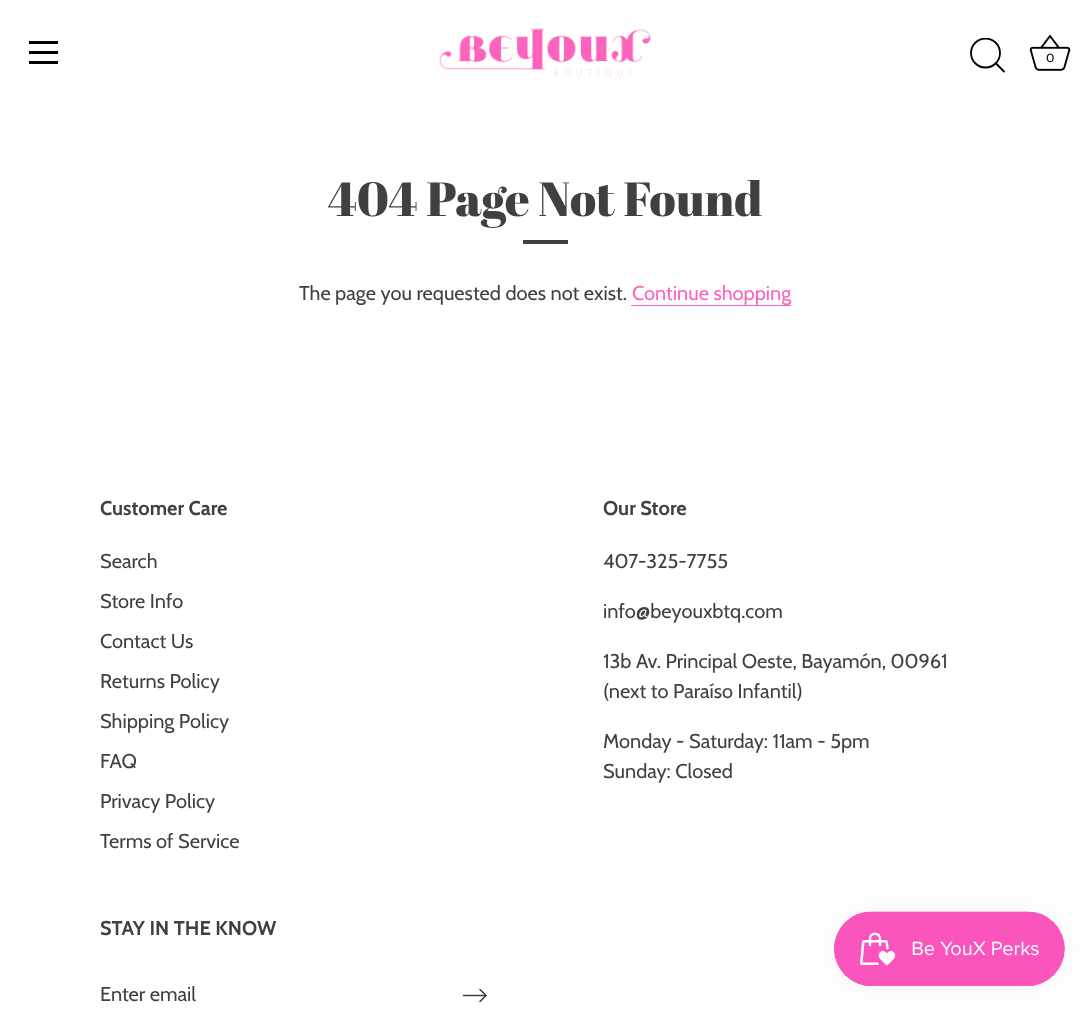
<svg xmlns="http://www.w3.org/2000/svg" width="1089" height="1011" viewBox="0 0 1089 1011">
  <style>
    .t1 { font: 12px Cabin; fill: #000; }
    .t2 { font: 48px Abril Fatface; fill: #423f3f; }
    .t3 { font: 20px Cabin; fill: #423f3f; }
    .t4 { font: 20px Cabin; fill: #fc63be; }
    .t5 { font: bold 20px Cabin; fill: #423f3f; }
  </style>
  <defs>
    <clipPath id="clip1"><rect x="970" y="38" width="36" height="36"/></clipPath>
  </defs>
  <rect width="100%" height="100%" fill="#fff"/>
  <rect x="29" y="41" width="29" height="3" fill="#000"/>
  <rect x="29" y="51" width="29" height="3" fill="#000"/>
  <rect x="29" y="61" width="29" height="3" fill="#000"/>
  <image x="439" y="28" width="212" height="49" href="images/1.png"/>
  <g clip-path="url(#clip1)">
    <circle cx="985.5" cy="53" r="14.5" fill="none" stroke="#000" stroke-width="1.8"/>
  </g>
  <path d="M1004 71.5L996 63.5" fill="none" stroke="#000" stroke-width="1.8" stroke-linecap="round" stroke-linejoin="round"/>
  <image x="1029" y="35" width="42" height="36" href="images/2.png"/>
  <text x="1046" y="62" class="t1">0</text>
  <text x="328" y="216" class="t2">404 Page Not Found</text>
  <rect x="523" y="240" width="45" height="4" fill="#413f3f"/>
  <text x="299" y="300" class="t3">The page you requested does not exist.</text>
  <text x="632" y="300" class="t4">Continue shopping</text>
  <rect x="631" y="305" width="160" height="1" fill="#fc63be"/>
  <text x="100" y="515" class="t5">Customer Care</text>
  <text x="100" y="568" class="t3">Search</text>
  <text x="100" y="608" class="t3">Store Info</text>
  <text x="100" y="648" class="t3">Contact Us</text>
  <text x="100" y="688" class="t3">Returns Policy</text>
  <text x="100" y="728" class="t3">Shipping Policy</text>
  <text x="100" y="768" class="t3">FAQ</text>
  <text x="100" y="808" class="t3">Privacy Policy</text>
  <text x="100" y="848" class="t3">Terms of Service</text>
  <text x="603" y="515" class="t5">Our Store</text>
  <text x="603" y="568" class="t3">407-325-7755</text>
  <text x="603" y="618" class="t3">info@beyouxbtq.com</text>
  <text x="603" y="668" class="t3">13b Av. Principal Oeste, Bayamón, 00961</text>
  <text x="603" y="698" class="t3">(next to Paraíso Infantil)</text>
  <text x="603" y="748" class="t3">Monday - Saturday: 11am - 5pm</text>
  <text x="603" y="778" class="t3">Sunday: Closed</text>
  <text x="100" y="935" class="t5">STAY IN THE KNOW</text>
  <text x="100" y="1001" class="t3">Enter email</text>
  <path d="M480 1001.5L486 995.5L480 989.5" fill="none" stroke="#423f3f" stroke-width="1.6" stroke-linecap="round"/>
  <path d="M485.5 995.5H463.5" fill="none" stroke="#423f3f" stroke-width="1.6" stroke-linecap="round" stroke-linejoin="round"/>
  <rect x="834" y="911" width="231" height="75" rx="37.5" fill="#0000000d" filter="blur(15.5px)"/>
  <image x="834" y="911" width="231" height="75" href="images/3.png"/>
</svg>
